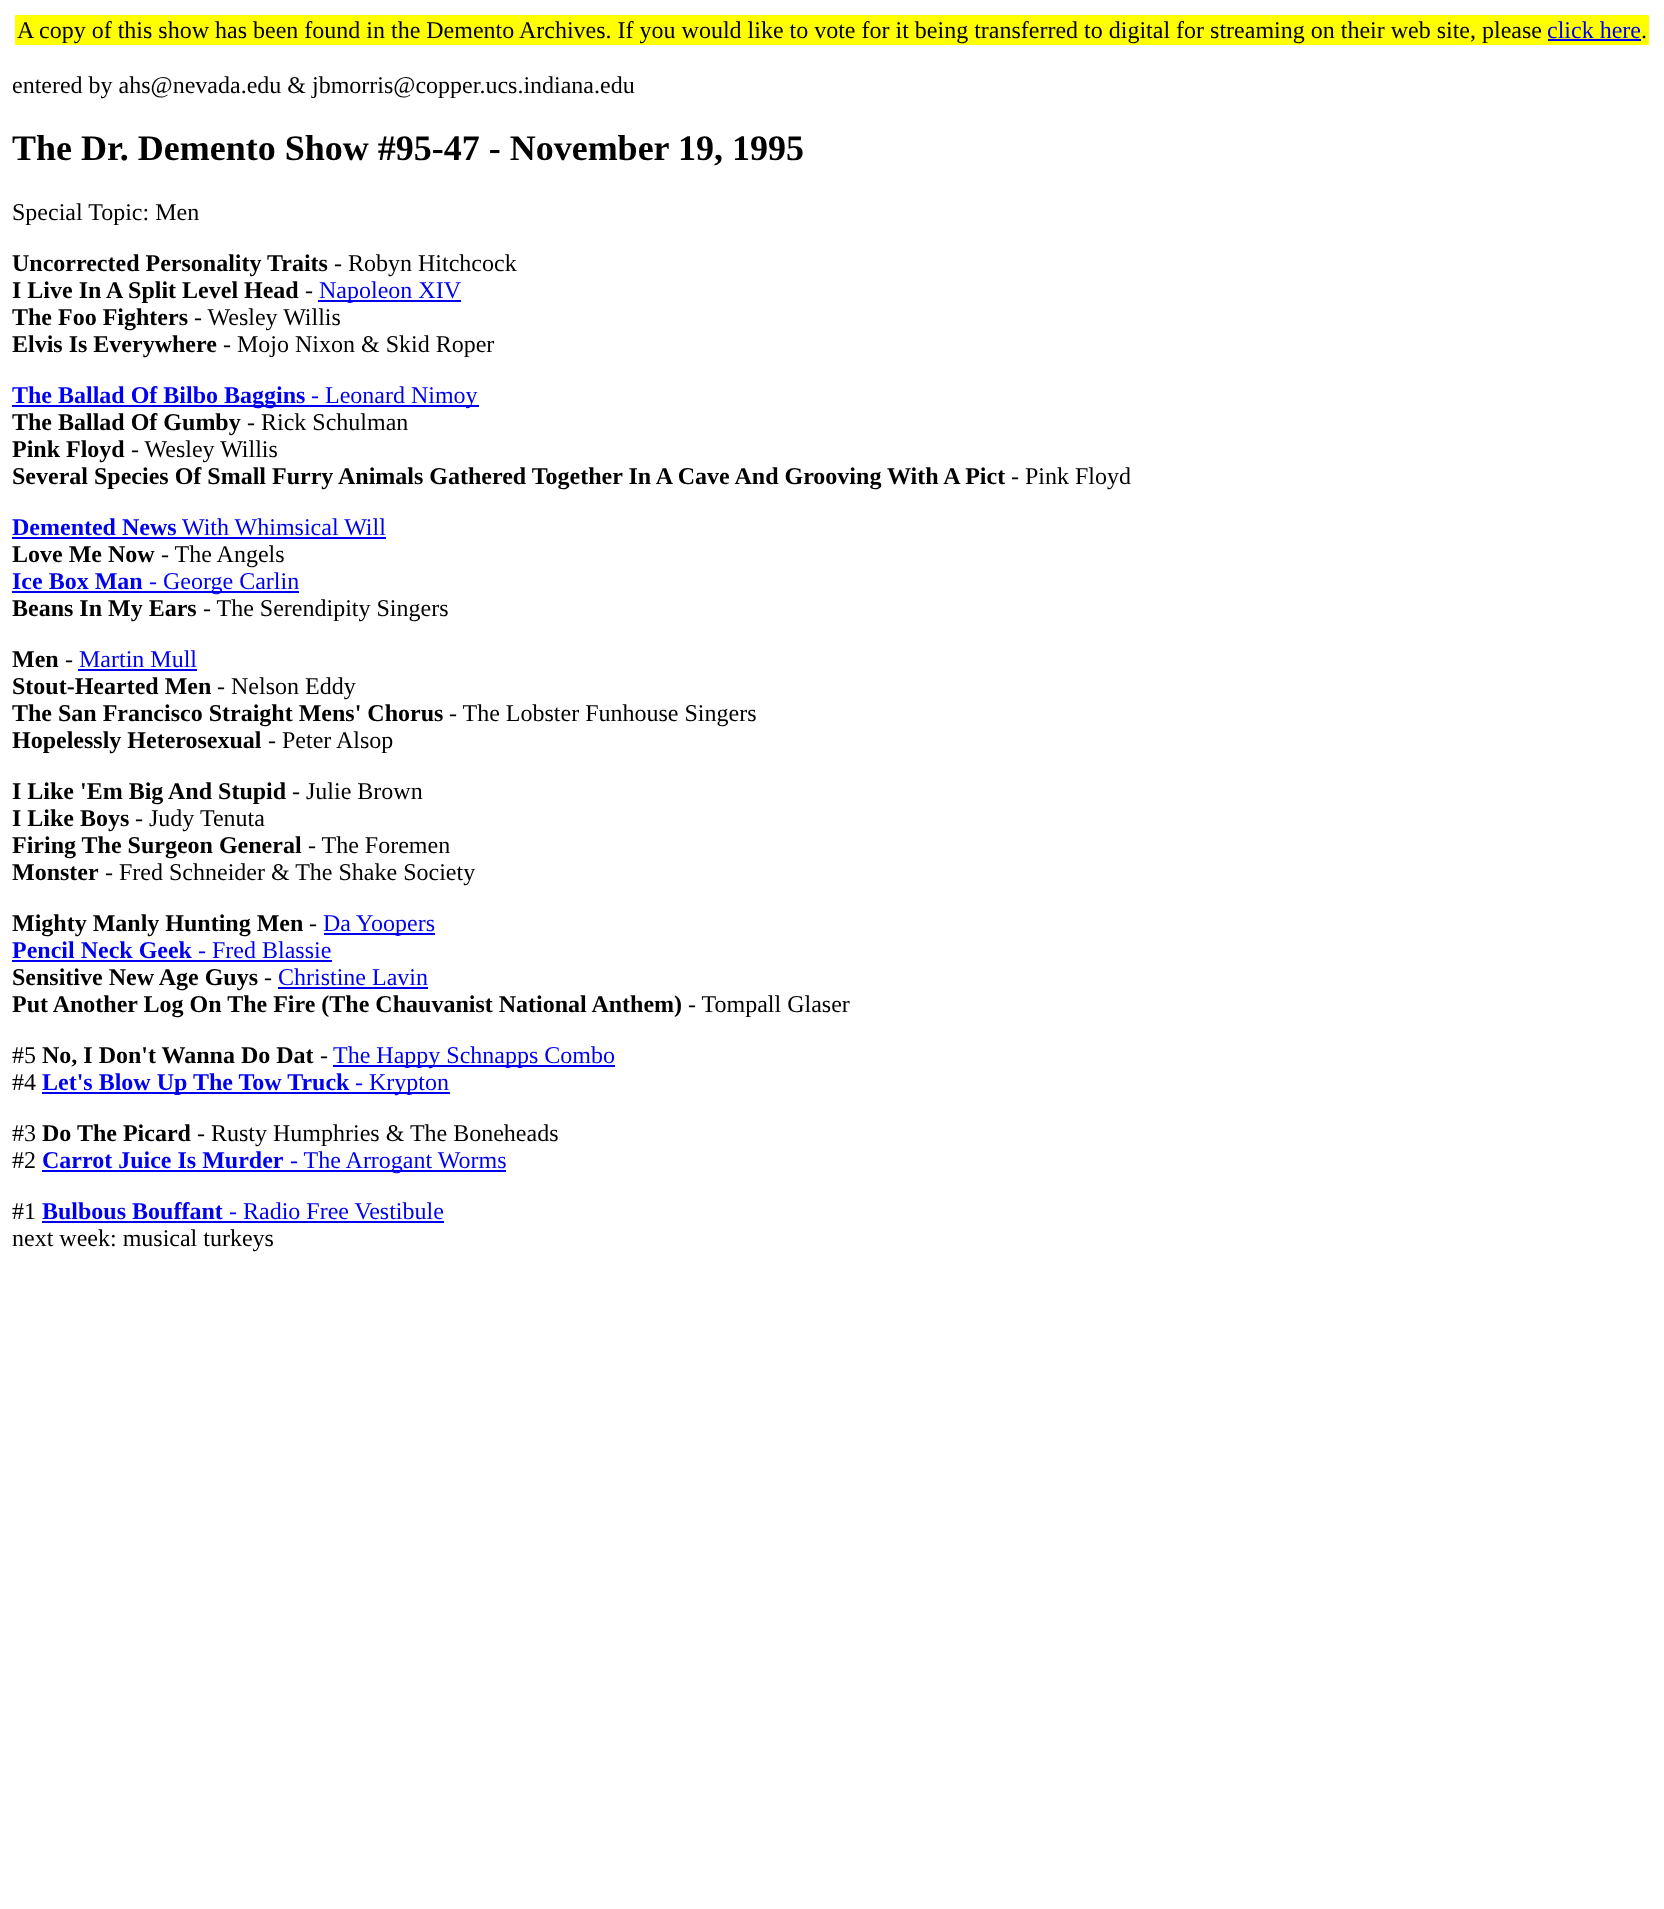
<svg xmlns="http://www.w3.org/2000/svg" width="1664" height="1909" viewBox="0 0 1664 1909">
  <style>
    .t1 { font: 24px Liberation Serif; fill: #000; }
    .t2 { font: 24px Liberation Serif; fill: #00e; }
    .t3 { font: bold 36px Liberation Serif; fill: #000; }
    .t4 { font: bold 24px Liberation Serif; fill: #000; }
    .t5 { font: bold 24px Liberation Serif; fill: #00e; }
  </style>
  <rect width="100%" height="100%" fill="#fff"/>
  <rect x="15" y="15" width="1634" height="30" fill="#ff0"/>
  <text x="17" y="38" class="t1">A copy of this show has been found in the Demento Archives. If you would like to vote for it being transferred to digital for streaming on their web site, please</text>
  <text x="1547" y="38" class="t2">click here</text>
  <rect x="1548" y="39" width="93" height="2" fill="#00e"/>
  <text x="1641" y="38" class="t1">.</text>
  <text x="12" y="93" class="t1">entered by ahs@nevada.edu &amp; jbmorris@copper.ucs.indiana.edu</text>
  <text x="12" y="160" class="t3">The Dr. Demento Show #95-47 - November 19, 1995</text>
  <text x="12" y="220" class="t1">Special Topic: Men</text>
  <text x="12" y="271" class="t4">Uncorrected Personality Traits</text>
  <text x="334" y="271" class="t1">- Robyn Hitchcock</text>
  <text x="12" y="298" class="t4">I Live In A Split Level Head</text>
  <text x="305" y="298" class="t1">-</text>
  <rect x="318" y="300" width="143" height="2" fill="#00e"/>
  <text x="319" y="298" class="t2">Napoleon XIV</text>
  <text x="12" y="325" class="t4">The Foo Fighters</text>
  <text x="194" y="325" class="t1">- Wesley Willis</text>
  <text x="12" y="352" class="t4">Elvis Is Everywhere</text>
  <text x="223" y="352" class="t1">- Mojo Nixon &amp; Skid Roper</text>
  <rect x="12" y="405" width="467" height="2" fill="#00e"/>
  <text x="12" y="403" class="t5">The Ballad Of Bilbo Baggins</text>
  <text x="311" y="403" class="t2">- Leonard Nimoy</text>
  <text x="12" y="430" class="t4">The Ballad Of Gumby</text>
  <text x="247" y="430" class="t1">- Rick Schulman</text>
  <text x="12" y="457" class="t4">Pink Floyd</text>
  <text x="131" y="457" class="t1">- Wesley Willis</text>
  <text x="12" y="484" class="t4">Several Species Of Small Furry Animals Gathered Together In A Cave And Grooving With A Pict</text>
  <text x="1011" y="484" class="t1">- Pink Floyd</text>
  <text x="12" y="535" class="t5">Demented News</text>
  <rect x="12" y="537" width="374" height="2" fill="#00e"/>
  <text x="182" y="535" class="t2">With Whimsical Will</text>
  <text x="12" y="562" class="t4">Love Me Now</text>
  <text x="161" y="562" class="t1">- The Angels</text>
  <text x="12" y="589" class="t5">Ice Box Man</text>
  <rect x="12" y="591" width="287" height="2" fill="#00e"/>
  <text x="149" y="589" class="t2">- George Carlin</text>
  <text x="12" y="616" class="t4">Beans In My Ears</text>
  <text x="203" y="616" class="t1">- The Serendipity Singers</text>
  <text x="12" y="667" class="t4">Men</text>
  <text x="65" y="667" class="t1">-</text>
  <text x="79" y="667" class="t2">Martin Mull</text>
  <rect x="78" y="669" width="119" height="2" fill="#00e"/>
  <text x="12" y="694" class="t4">Stout-Hearted Men</text>
  <text x="217" y="694" class="t1">- Nelson Eddy</text>
  <text x="12" y="721" class="t4">The San Francisco Straight Mens' Chorus</text>
  <text x="449" y="721" class="t1">- The Lobster Funhouse Singers</text>
  <text x="12" y="748" class="t4">Hopelessly Heterosexual</text>
  <text x="268" y="748" class="t1">- Peter Alsop</text>
  <text x="12" y="799" class="t4">I Like 'Em Big And Stupid</text>
  <text x="292" y="799" class="t1">- Julie Brown</text>
  <text x="12" y="826" class="t4">I Like Boys</text>
  <text x="135" y="826" class="t1">- Judy Tenuta</text>
  <text x="12" y="853" class="t4">Firing The Surgeon General</text>
  <text x="308" y="853" class="t1">- The Foremen</text>
  <text x="12" y="880" class="t4">Monster</text>
  <text x="105" y="880" class="t1">- Fred Schneider &amp; The Shake Society</text>
  <text x="12" y="931" class="t4">Mighty Manly Hunting Men</text>
  <text x="309" y="931" class="t1">-</text>
  <rect x="324" y="933" width="111" height="2" fill="#00e"/>
  <text x="323" y="931" class="t2">Da Yoopers</text>
  <text x="12" y="958" class="t5">Pencil Neck Geek</text>
  <rect x="12" y="960" width="320" height="2" fill="#00e"/>
  <text x="198" y="958" class="t2">- Fred Blassie</text>
  <text x="12" y="985" class="t4">Sensitive New Age Guys</text>
  <text x="264" y="985" class="t1">-</text>
  <text x="278" y="985" class="t2">Christine Lavin</text>
  <rect x="278" y="987" width="150" height="2" fill="#00e"/>
  <text x="12" y="1012" class="t4">Put Another Log On The Fire (The Chauvanist National Anthem)</text>
  <text x="688" y="1012" class="t1">- Tompall Glaser</text>
  <text x="12" y="1063" class="t1">#5</text>
  <text x="42" y="1063" class="t4">No, I Don't Wanna Do Dat</text>
  <text x="320" y="1063" class="t1">-</text>
  <rect x="333" y="1065" width="282" height="2" fill="#00e"/>
  <text x="333" y="1063" class="t2">The Happy Schnapps Combo</text>
  <text x="12" y="1090" class="t1">#4</text>
  <rect x="42" y="1092" width="408" height="2" fill="#00e"/>
  <text x="42" y="1090" class="t5">Let's Blow Up The Tow Truck</text>
  <text x="355" y="1090" class="t2">- Krypton</text>
  <text x="12" y="1141" class="t1">#3</text>
  <text x="42" y="1141" class="t4">Do The Picard</text>
  <text x="197" y="1141" class="t1">- Rusty Humphries &amp; The Boneheads</text>
  <text x="12" y="1168" class="t1">#2</text>
  <text x="42" y="1168" class="t5">Carrot Juice Is Murder</text>
  <rect x="42" y="1170" width="464" height="2" fill="#00e"/>
  <text x="290" y="1168" class="t2">- The Arrogant Worms</text>
  <text x="12" y="1219" class="t1">#1</text>
  <text x="42" y="1219" class="t5">Bulbous Bouffant</text>
  <rect x="42" y="1221" width="402" height="2" fill="#00e"/>
  <text x="229" y="1219" class="t2">- Radio Free Vestibule</text>
  <text x="12" y="1246" class="t1">next week: musical turkeys</text>
</svg>
